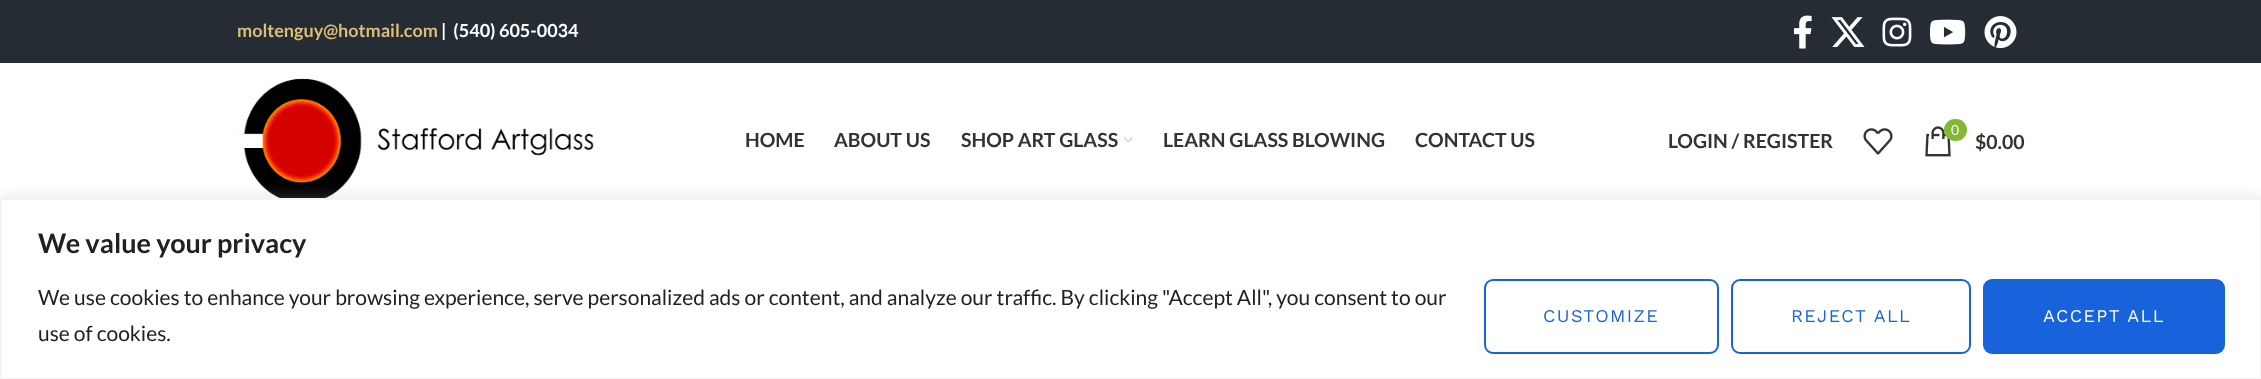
<svg xmlns="http://www.w3.org/2000/svg" width="2261" height="379" viewBox="0 0 2261 379">
  <style>
    .t1 { font: bold 18px Lato; fill: #ddbe76; }
    .t2 { font: bold 18px Lato; fill: #fff; }
    .t3 { font: bold 19.5px Lato; fill: #333; }
    .t4 { font: 14px Lato; fill: #fff; }
    .t5 { font: bold 27px Lato; fill: #212121; }
    .t6 { font: 21px Lato; fill: #212121; }
    .t7 { font: 18px Work Sans; letter-spacing: 1.4px; fill: #1863dc; }
    .t8 { font: 18px Work Sans; letter-spacing: 1.4px; fill: #fff; }
  </style>
  <rect width="100%" height="100%" fill="#fff"/>
  <rect x="0" y="0" width="2261" height="63" fill="#252c34"/>
  <text x="237" y="37" class="t1">moltenguy@hotmail.com</text>
  <text x="441" y="37" class="t2" xml:space="preserve">|  (540) 605-0034</text>
  <image x="1794" y="15" width="18" height="34" href="images/1.png"/>
  <image x="1831" y="17" width="34" height="30" href="images/2.png"/>
  <image x="1882" y="17" width="30" height="30" href="images/3.png"/>
  <image x="1929" y="19" width="37" height="26" href="images/4.png"/>
  <image x="1984" y="16" width="33" height="33" href="images/5.png"/>
  <image x="237" y="78" width="357" height="120" href="images/6.png"/>
  <text x="745" y="147" class="t3">HOME</text>
  <text x="834" y="147" class="t3">ABOUT US</text>
  <text x="961" y="147" class="t3">SHOP ART GLASS</text>
  <image x="1123" y="137" width="10" height="6" href="images/7.png"/>
  <text x="1163" y="147" class="t3">LEARN GLASS BLOWING</text>
  <text x="1415" y="147" class="t3">CONTACT US</text>
  <text x="1668" y="148" class="t3">LOGIN / REGISTER</text>
  <image x="1863" y="128" width="30" height="27" href="images/8.png"/>
  <image x="1925" y="126" width="26" height="31" href="images/9.png"/>
  <rect x="1944" y="119" width="23" height="22" rx="11" fill="#83b735"/>
  <text x="1951" y="135" class="t4">0</text>
  <text x="1975" y="149" class="t3">$0.00</text>
  <rect x="0" y="197" width="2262" height="181" fill="#acabab4d" filter="blur(7.5px)"/>
  <rect x="1" y="199" width="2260" height="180" fill="#fff" stroke="#f4f4f4" stroke-width="2"/>
  <text x="38" y="253" class="t5">We value your privacy</text>
  <text x="38" y="305" class="t6">We use cookies to enhance your browsing experience, serve personalized ads or content, and analyze our traffic. By clicking "Accept All", you consent to our</text>
  <text x="38" y="341" class="t6">use of cookies.</text>
  <rect x="1485" y="280" width="233" height="73" rx="8" fill="none" stroke="#1863dc" stroke-width="2"/>
  <text x="1543" y="322" class="t7">CUSTOMIZE</text>
  <rect x="1732" y="280" width="238" height="73" rx="8" fill="none" stroke="#1863dc" stroke-width="2"/>
  <text x="1791" y="322" class="t7">REJECT ALL</text>
  <rect x="1984" y="280" width="240" height="73" rx="8" fill="#1863dc" stroke="#1863dc" stroke-width="2"/>
  <text x="2043" y="322" class="t8">ACCEPT ALL</text>
</svg>
